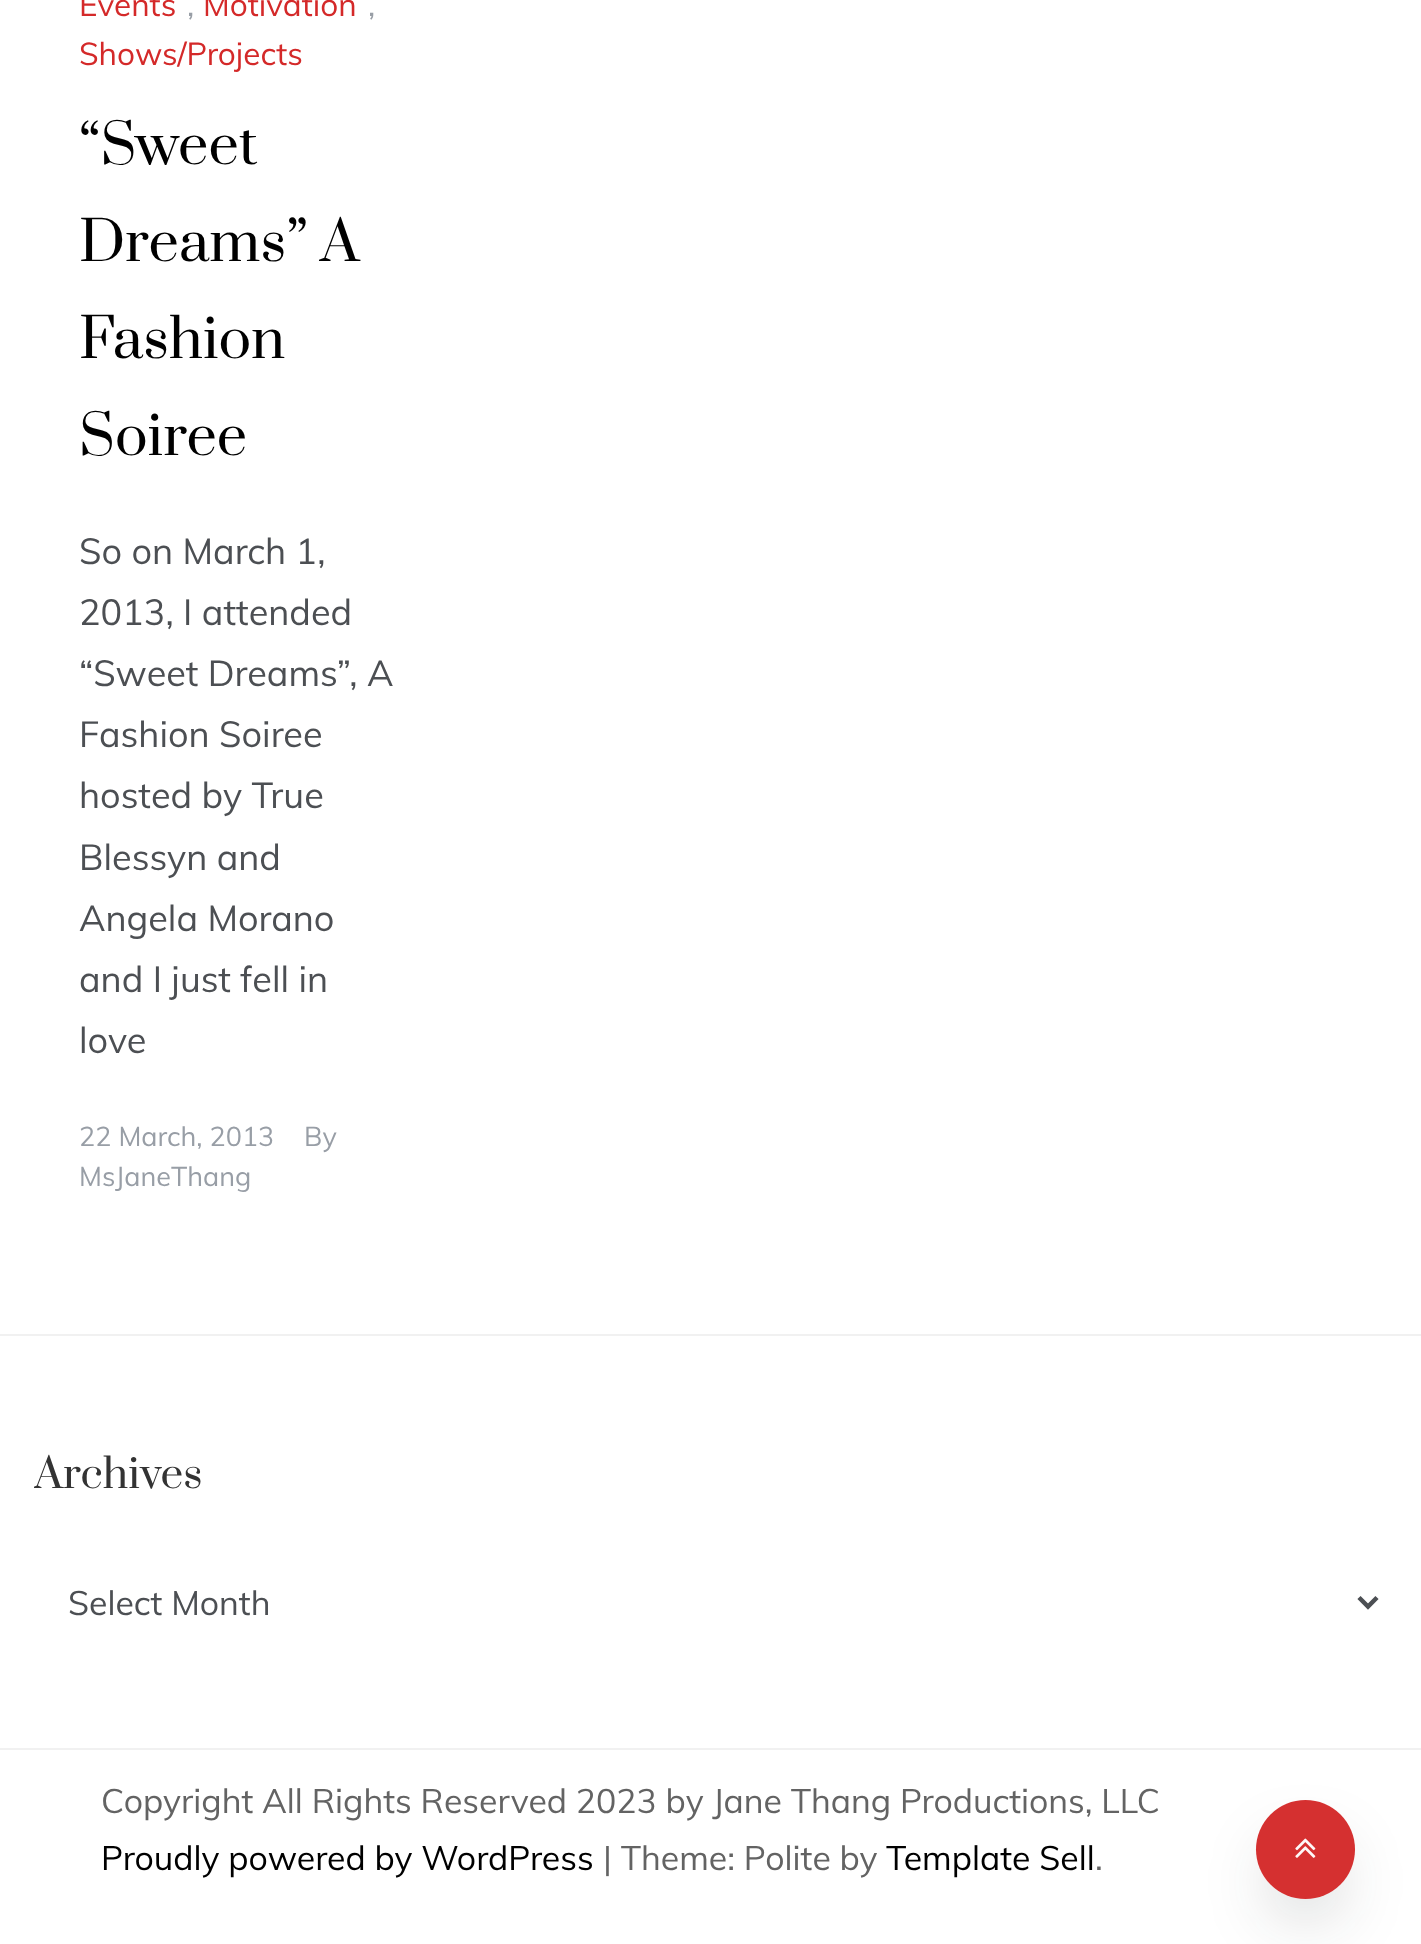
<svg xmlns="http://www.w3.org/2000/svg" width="1421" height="1944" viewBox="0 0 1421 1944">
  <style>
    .t1 { font: 31.5px Muli; fill: #d42929; }
    .t2 { font: 31.5px Muli; fill: #989ea6; }
    .t3 { font: 54px Prata; fill: #000; }
    .t4 { font: 36px Muli; fill: #4c4f53; }
    .t5 { font: 27px Muli; fill: #989ea6; }
    .t6 { font: 40.5px Prata; fill: #333; }
    .t7 { font: 33.75px Muli; fill: #4c4f53; }
    .t8 { font: 33.75px Muli; fill: #636363; }
    .t9 { font: 33.75px Muli; fill: #000; }
  </style>
  <defs>
    <clipPath id="clip1"><rect x="34" y="1449" width="1354" height="198"/></clipPath>
  </defs>
  <rect width="100%" height="100%" fill="#fff"/>
  <text x="79" y="16" class="t1">Events</text>
  <text x="187" y="16" class="t2">,</text>
  <text x="203" y="16" class="t1">Motivation</text>
  <text x="368" y="16" class="t2">,</text>
  <text x="79" y="65" class="t1">Shows/Projects</text>
  <text x="79" y="164" class="t3">“Sweet</text>
  <text x="79" y="261" class="t3">Dreams” A</text>
  <text x="79" y="358" class="t3">Fashion</text>
  <text x="79" y="455" class="t3">Soiree</text>
  <text x="79" y="564" class="t4">So on March 1,</text>
  <text x="79" y="625" class="t4">2013, I attended</text>
  <text x="79" y="686" class="t4">“Sweet Dreams”, A</text>
  <text x="79" y="747" class="t4">Fashion Soiree</text>
  <text x="79" y="808" class="t4">hosted by True</text>
  <text x="79" y="870" class="t4">Blessyn and</text>
  <text x="79" y="931" class="t4">Angela Morano</text>
  <text x="79" y="992" class="t4">and I just fell in</text>
  <text x="79" y="1053" class="t4">love</text>
  <text x="79" y="1146" class="t5">22 March, 2013</text>
  <text x="304" y="1146" class="t5">By</text>
  <text x="79" y="1186" class="t5">MsJaneThang</text>
  <rect x="0" y="1334" width="1421" height="2" fill="#f1f1f1"/>
  <g clip-path="url(#clip1)">
    <text x="34" y="1488" class="t6">Archives</text>
  </g>
  <path d="M1359 1597.5L1368 1606.5L1377 1597.5" fill="none" stroke="#4c4f53" stroke-width="4.5"/>
  <text x="68" y="1615" class="t7">Select Month</text>
  <rect x="0" y="1748" width="1421" height="2" fill="#f1f1f1"/>
  <text x="101" y="1813" class="t8">Copyright All Rights Reserved 2023 by Jane Thang Productions, LLC</text>
  <text x="101" y="1870" class="t9">Proudly powered by WordPress</text>
  <text x="603" y="1870" class="t8">| Theme: Polite by</text>
  <text x="886" y="1870" class="t9">Template Sell</text>
  <text x="1095" y="1870" class="t8">.</text>
  <rect x="1265" y="1841" width="81" height="81" rx="40.5" fill="#16191c26" filter="blur(31.5px)"/>
  <circle cx="1305.5" cy="1849.5" r="49.5" fill="#d53030"/>
  <image x="1295" y="1838" width="21" height="20" href="images/1.png"/>
</svg>
